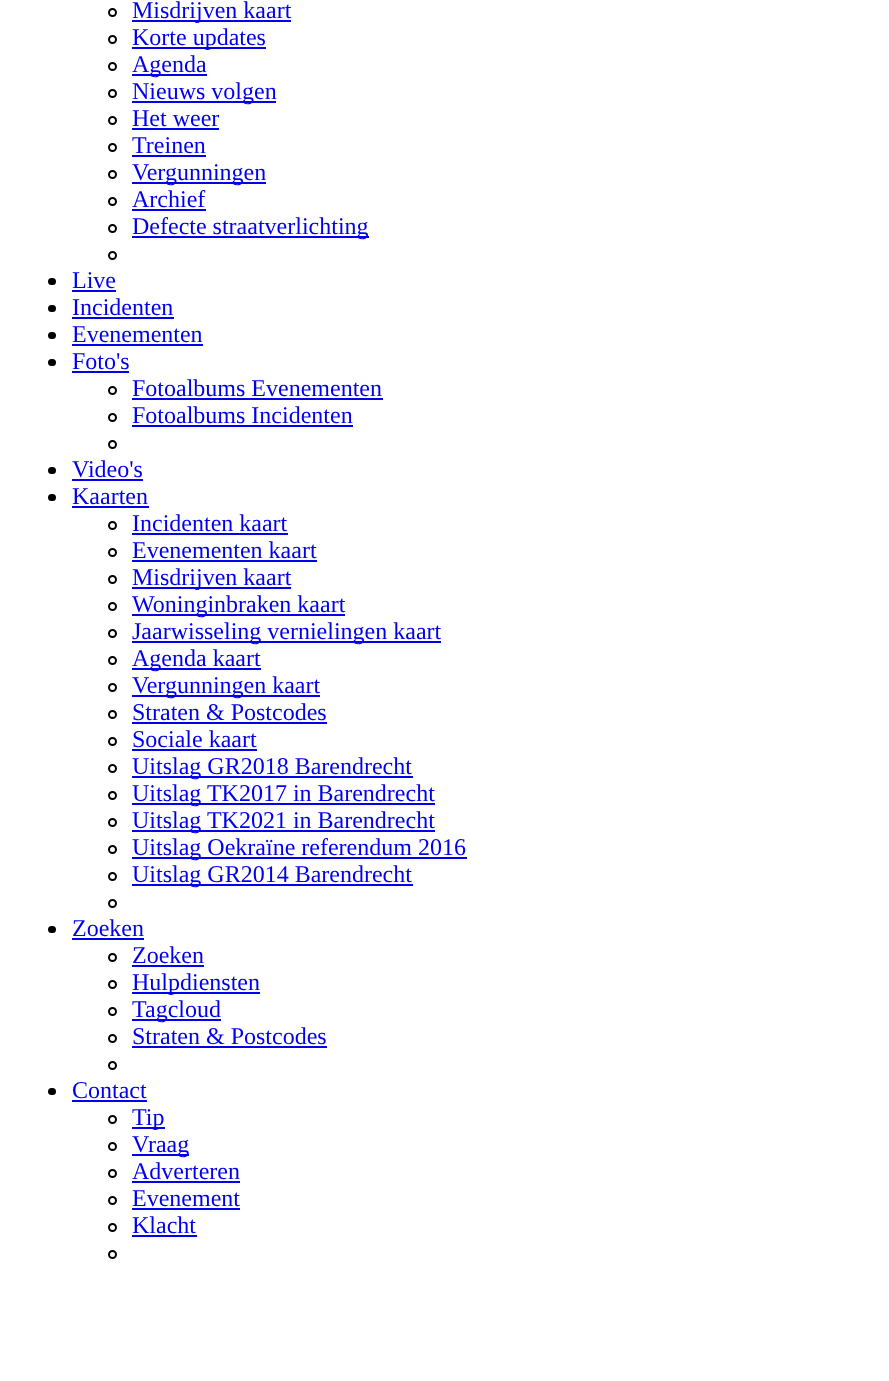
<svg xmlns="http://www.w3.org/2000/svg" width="889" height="1381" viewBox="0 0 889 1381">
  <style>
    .t1 { font: 24px Liberation Serif; fill: #00e; }
  </style>
  <rect width="100%" height="100%" fill="#fff"/>
  <circle cx="112.5" cy="12.5" r="3.5" fill="none" stroke="#000" stroke-width="2"/>
  <rect x="132" y="20" width="159" height="2" fill="#00e"/>
  <text x="132" y="18" class="t1">Misdrijven kaart</text>
  <circle cx="112.5" cy="39.5" r="3.5" fill="none" stroke="#000" stroke-width="2"/>
  <rect x="132" y="47" width="134" height="2" fill="#00e"/>
  <text x="132" y="45" class="t1">Korte updates</text>
  <circle cx="112.5" cy="66.5" r="3.5" fill="none" stroke="#000" stroke-width="2"/>
  <rect x="132" y="74" width="75" height="2" fill="#00e"/>
  <text x="132" y="72" class="t1">Agenda</text>
  <circle cx="112.5" cy="93.5" r="3.5" fill="none" stroke="#000" stroke-width="2"/>
  <rect x="132" y="101" width="144" height="2" fill="#00e"/>
  <text x="132" y="99" class="t1">Nieuws volgen</text>
  <circle cx="112.5" cy="120.5" r="3.5" fill="none" stroke="#000" stroke-width="2"/>
  <text x="132" y="126" class="t1">Het weer</text>
  <rect x="132" y="128" width="87" height="2" fill="#00e"/>
  <circle cx="112.5" cy="147.5" r="3.5" fill="none" stroke="#000" stroke-width="2"/>
  <text x="132" y="153" class="t1">Treinen</text>
  <rect x="132" y="155" width="74" height="2" fill="#00e"/>
  <circle cx="112.5" cy="174.5" r="3.5" fill="none" stroke="#000" stroke-width="2"/>
  <rect x="132" y="182" width="134" height="2" fill="#00e"/>
  <text x="132" y="180" class="t1">Vergunningen</text>
  <circle cx="112.5" cy="201.5" r="3.5" fill="none" stroke="#000" stroke-width="2"/>
  <text x="132" y="207" class="t1">Archief</text>
  <rect x="132" y="209" width="74" height="2" fill="#00e"/>
  <circle cx="112.5" cy="228.5" r="3.5" fill="none" stroke="#000" stroke-width="2"/>
  <rect x="132" y="236" width="237" height="2" fill="#00e"/>
  <text x="132" y="234" class="t1">Defecte straatverlichting</text>
  <circle cx="112.5" cy="255.5" r="3.5" fill="none" stroke="#000" stroke-width="2"/>
  <rect x="48" y="278" width="8" height="7" rx="3.5" fill="#000"/>
  <text x="72" y="288" class="t1">Live</text>
  <rect x="72" y="290" width="44" height="2" fill="#00e"/>
  <rect x="48" y="305" width="8" height="7" rx="3.5" fill="#000"/>
  <text x="72" y="315" class="t1">Incidenten</text>
  <rect x="72" y="317" width="102" height="2" fill="#00e"/>
  <rect x="48" y="332" width="8" height="7" rx="3.5" fill="#000"/>
  <text x="72" y="342" class="t1">Evenementen</text>
  <rect x="72" y="344" width="131" height="2" fill="#00e"/>
  <rect x="48" y="359" width="8" height="7" rx="3.5" fill="#000"/>
  <text x="72" y="369" class="t1">Foto's</text>
  <rect x="72" y="371" width="57" height="2" fill="#00e"/>
  <circle cx="112.5" cy="390.5" r="3.5" fill="none" stroke="#000" stroke-width="2"/>
  <text x="132" y="396" class="t1">Fotoalbums Evenementen</text>
  <rect x="132" y="398" width="251" height="2" fill="#00e"/>
  <circle cx="112.5" cy="417.5" r="3.5" fill="none" stroke="#000" stroke-width="2"/>
  <text x="132" y="423" class="t1">Fotoalbums Incidenten</text>
  <rect x="132" y="425" width="221" height="2" fill="#00e"/>
  <circle cx="112.5" cy="444.5" r="3.5" fill="none" stroke="#000" stroke-width="2"/>
  <rect x="48" y="467" width="8" height="7" rx="3.5" fill="#000"/>
  <text x="72" y="477" class="t1">Video's</text>
  <rect x="72" y="479" width="71" height="2" fill="#00e"/>
  <rect x="48" y="494" width="8" height="7" rx="3.5" fill="#000"/>
  <text x="72" y="504" class="t1">Kaarten</text>
  <rect x="72" y="506" width="77" height="2" fill="#00e"/>
  <circle cx="112.5" cy="525.5" r="3.5" fill="none" stroke="#000" stroke-width="2"/>
  <text x="132" y="531" class="t1">Incidenten kaart</text>
  <rect x="132" y="533" width="156" height="2" fill="#00e"/>
  <circle cx="112.5" cy="552.5" r="3.5" fill="none" stroke="#000" stroke-width="2"/>
  <text x="132" y="558" class="t1">Evenementen kaart</text>
  <rect x="132" y="560" width="185" height="2" fill="#00e"/>
  <circle cx="112.5" cy="579.5" r="3.5" fill="none" stroke="#000" stroke-width="2"/>
  <rect x="132" y="587" width="159" height="2" fill="#00e"/>
  <text x="132" y="585" class="t1">Misdrijven kaart</text>
  <circle cx="112.5" cy="606.5" r="3.5" fill="none" stroke="#000" stroke-width="2"/>
  <rect x="132" y="614" width="213" height="2" fill="#00e"/>
  <text x="132" y="612" class="t1">Woninginbraken kaart</text>
  <circle cx="112.5" cy="633.5" r="3.5" fill="none" stroke="#000" stroke-width="2"/>
  <rect x="132" y="641" width="309" height="2" fill="#00e"/>
  <text x="132" y="639" class="t1">Jaarwisseling vernielingen kaart</text>
  <circle cx="112.5" cy="660.5" r="3.5" fill="none" stroke="#000" stroke-width="2"/>
  <rect x="132" y="668" width="129" height="2" fill="#00e"/>
  <text x="132" y="666" class="t1">Agenda kaart</text>
  <circle cx="112.5" cy="687.5" r="3.5" fill="none" stroke="#000" stroke-width="2"/>
  <rect x="132" y="695" width="188" height="2" fill="#00e"/>
  <text x="132" y="693" class="t1">Vergunningen kaart</text>
  <circle cx="112.5" cy="714.5" r="3.5" fill="none" stroke="#000" stroke-width="2"/>
  <text x="132" y="720" class="t1">Straten &amp; Postcodes</text>
  <rect x="132" y="722" width="195" height="2" fill="#00e"/>
  <circle cx="112.5" cy="741.5" r="3.5" fill="none" stroke="#000" stroke-width="2"/>
  <text x="132" y="747" class="t1">Sociale kaart</text>
  <rect x="132" y="749" width="125" height="2" fill="#00e"/>
  <circle cx="112.5" cy="768.5" r="3.5" fill="none" stroke="#000" stroke-width="2"/>
  <rect x="132" y="776" width="281" height="2" fill="#00e"/>
  <text x="132" y="774" class="t1">Uitslag GR2018 Barendrecht</text>
  <circle cx="112.5" cy="795.5" r="3.5" fill="none" stroke="#000" stroke-width="2"/>
  <rect x="132" y="803" width="303" height="2" fill="#00e"/>
  <text x="132" y="801" class="t1">Uitslag TK2017 in Barendrecht</text>
  <circle cx="112.5" cy="822.5" r="3.5" fill="none" stroke="#000" stroke-width="2"/>
  <rect x="132" y="830" width="303" height="2" fill="#00e"/>
  <text x="132" y="828" class="t1">Uitslag TK2021 in Barendrecht</text>
  <circle cx="112.5" cy="849.5" r="3.5" fill="none" stroke="#000" stroke-width="2"/>
  <rect x="132" y="857" width="335" height="2" fill="#00e"/>
  <text x="132" y="855" class="t1">Uitslag Oekraïne referendum 2016</text>
  <circle cx="112.5" cy="876.5" r="3.5" fill="none" stroke="#000" stroke-width="2"/>
  <rect x="132" y="884" width="281" height="2" fill="#00e"/>
  <text x="132" y="882" class="t1">Uitslag GR2014 Barendrecht</text>
  <circle cx="112.5" cy="903.5" r="3.5" fill="none" stroke="#000" stroke-width="2"/>
  <rect x="48" y="926" width="8" height="7" rx="3.5" fill="#000"/>
  <text x="72" y="936" class="t1">Zoeken</text>
  <rect x="72" y="938" width="72" height="2" fill="#00e"/>
  <circle cx="112.5" cy="957.5" r="3.5" fill="none" stroke="#000" stroke-width="2"/>
  <text x="132" y="963" class="t1">Zoeken</text>
  <rect x="132" y="965" width="72" height="2" fill="#00e"/>
  <circle cx="112.5" cy="984.5" r="3.5" fill="none" stroke="#000" stroke-width="2"/>
  <rect x="132" y="992" width="128" height="2" fill="#00e"/>
  <text x="132" y="990" class="t1">Hulpdiensten</text>
  <circle cx="112.5" cy="1011.5" r="3.5" fill="none" stroke="#000" stroke-width="2"/>
  <rect x="132" y="1019" width="89" height="2" fill="#00e"/>
  <text x="132" y="1017" class="t1">Tagcloud</text>
  <circle cx="112.5" cy="1038.5" r="3.5" fill="none" stroke="#000" stroke-width="2"/>
  <text x="132" y="1044" class="t1">Straten &amp; Postcodes</text>
  <rect x="132" y="1046" width="195" height="2" fill="#00e"/>
  <circle cx="112.5" cy="1065.5" r="3.5" fill="none" stroke="#000" stroke-width="2"/>
  <rect x="48" y="1088" width="8" height="7" rx="3.5" fill="#000"/>
  <text x="72" y="1098" class="t1">Contact</text>
  <rect x="72" y="1100" width="75" height="2" fill="#00e"/>
  <circle cx="112.5" cy="1119.5" r="3.5" fill="none" stroke="#000" stroke-width="2"/>
  <rect x="132" y="1127" width="33" height="2" fill="#00e"/>
  <text x="132" y="1125" class="t1">Tip</text>
  <circle cx="112.5" cy="1146.5" r="3.5" fill="none" stroke="#000" stroke-width="2"/>
  <rect x="132" y="1154" width="57" height="2" fill="#00e"/>
  <text x="132" y="1152" class="t1">Vraag</text>
  <circle cx="112.5" cy="1173.5" r="3.5" fill="none" stroke="#000" stroke-width="2"/>
  <text x="132" y="1179" class="t1">Adverteren</text>
  <rect x="132" y="1181" width="108" height="2" fill="#00e"/>
  <circle cx="112.5" cy="1200.5" r="3.5" fill="none" stroke="#000" stroke-width="2"/>
  <text x="132" y="1206" class="t1">Evenement</text>
  <rect x="132" y="1208" width="108" height="2" fill="#00e"/>
  <circle cx="112.5" cy="1227.5" r="3.5" fill="none" stroke="#000" stroke-width="2"/>
  <text x="132" y="1233" class="t1">Klacht</text>
  <rect x="132" y="1235" width="65" height="2" fill="#00e"/>
  <circle cx="112.5" cy="1254.5" r="3.5" fill="none" stroke="#000" stroke-width="2"/>
</svg>
